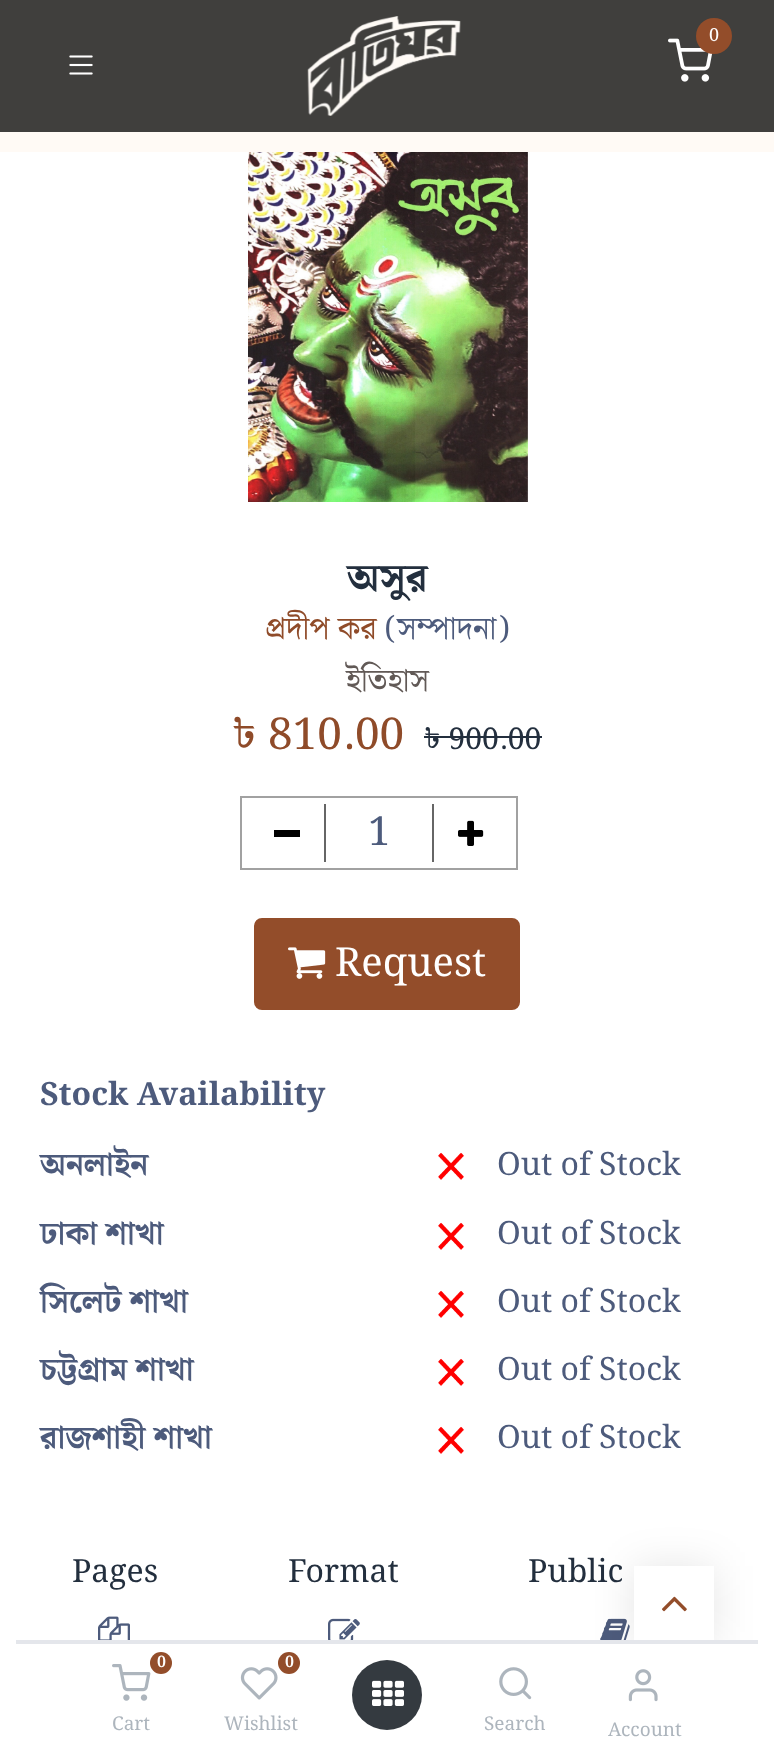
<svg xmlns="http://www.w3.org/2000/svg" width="774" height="1756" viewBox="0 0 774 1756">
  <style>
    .t1 { font: 18px Noto Serif Bengali; fill: #fff; }
    .t2 { font: bold 40px Noto Serif Bengali; fill: #232f3e; }
    .t3 { font: 32px Noto Serif Bengali; fill: #8f4b29; }
    .t4 { font: 32px Noto Serif Bengali; fill: #4d5b7c; }
    .t5 { font: 32px Noto Serif Bengali; fill: #615956; }
    .t6 { font: 44px Noto Serif Bengali; fill: #8f4b29; }
    .t7 { font: 30px Noto Serif Bengali; fill: #232f3e; }
    .t8 { font: 40px Noto Serif Bengali; fill: #4d5b7c; }
    .t9 { font: 40px Noto Serif Bengali; fill: #fff; }
    .t10 { font: bold 32px Noto Serif Bengali; fill: #4d5b7c; }
    .t11 { font: 32px Noto Serif Bengali; fill: #232f3e; }
    .t12 { font: bold 16px Noto Serif Bengali; fill: #fff; }
    .t13 { font: 19px Noto Serif Bengali; fill: #adb5bd; }
  </style>
  <rect width="100%" height="100%" fill="#fffaf5"/>
  <rect x="0" y="0" width="774" height="132" fill="#403f3d"/>
  <image x="307" y="16" width="154" height="100" href="images/1.png"/>
  <image x="668" y="38" width="45" height="44" href="images/2.png"/>
  <circle cx="714" cy="36" r="18" fill="#934d2a"/>
  <text x="709" y="41" class="t1">0</text>
  <image x="69" y="55" width="24" height="20" href="images/3.png"/>
  <rect x="0" y="152" width="774" height="1520" fill="#fff"/>
  <image x="248" y="152" width="280" height="350" href="images/4.png"/>
  <text x="347" y="591" class="t2">অসুর</text>
  <text x="265" y="639" class="t3">প্রদীপ কর</text>
  <text x="385" y="639" class="t4">(সম্পাদনা)</text>
  <text x="346" y="691" class="t5">ইতিহাস</text>
  <text x="232" y="749" class="t6">৳ 810.00</text>
  <text x="424" y="749" class="t7">৳ 900.00</text>
  <rect x="424" y="736" width="118" height="2" fill="#232f3e"/>
  <rect x="241" y="797" width="276" height="72" fill="none" stroke="#a1a1a1" stroke-width="2"/>
  <rect x="274" y="830" width="26" height="7" fill="#000"/>
  <rect x="432" y="804" width="2" height="58" fill="#666"/>
  <rect x="324" y="804" width="2" height="58" fill="#666"/>
  <text x="368" y="845" class="t8">1</text>
  <image x="458" y="820" width="26" height="26" href="images/5.png"/>
  <rect x="255" y="919" width="264" height="90" rx="7" fill="#934d2a" stroke="#934d2a" stroke-width="2"/>
  <image x="288" y="947" width="38" height="32" href="images/6.png"/>
  <text x="335" y="976" class="t9">Request</text>
  <text x="40" y="1105" class="t10">Stock Availability</text>
  <text x="40" y="1175" class="t10">অনলাইন</text>
  <image x="438" y="1152" width="26" height="28" href="images/7.png"/>
  <text x="497" y="1175" class="t4">Out of Stock</text>
  <text x="40" y="1244" class="t10">ঢাকা শাখা</text>
  <image x="438" y="1222" width="26" height="28" href="images/7.png"/>
  <text x="497" y="1244" class="t4">Out of Stock</text>
  <text x="40" y="1312" class="t10">সিলেট শাখা</text>
  <image x="438" y="1290" width="26" height="28" href="images/7.png"/>
  <text x="497" y="1312" class="t4">Out of Stock</text>
  <text x="40" y="1380" class="t10">চট্টগ্রাম শাখা</text>
  <image x="438" y="1358" width="26" height="28" href="images/7.png"/>
  <text x="497" y="1380" class="t4">Out of Stock</text>
  <text x="40" y="1448" class="t10">রাজশাহী শাখা</text>
  <image x="438" y="1426" width="26" height="28" href="images/7.png"/>
  <text x="497" y="1448" class="t4">Out of Stock</text>
  <text x="72" y="1582" class="t11">Pages</text>
  <image x="98" y="1616" width="32" height="24" href="images/8.png"/>
  <text x="288" y="1582" class="t11">Format</text>
  <image x="328" y="1618" width="32" height="22" href="images/9.png"/>
  <text x="528" y="1582" class="t11">Public</text>
  <image x="600" y="1618" width="30" height="22" href="images/10.png"/>
  <rect x="634" y="1566" width="80" height="80" fill="#0000001a" filter="blur(20px)"/>
  <rect x="634" y="1566" width="80" height="74" fill="#fff"/>
  <image x="662" y="1596" width="25" height="16" href="images/11.png"/>
  <path d="M32 1640H742C759.5 1640 774 1654.5 774 1672V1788H0V1672C0 1654.5 14.5 1640 32 1640Z" fill="#fff"/>
  <rect x="16" y="1640" width="742" height="4" fill="#e4e6eb"/>
  <image x="112" y="1664" width="39" height="37" href="images/12.png"/>
  <circle cx="161" cy="1663" r="11" fill="#934d2a"/>
  <text x="157" y="1667" class="t12">0</text>
  <text x="112" y="1730" class="t13">Cart</text>
  <circle cx="289" cy="1663" r="11" fill="#934d2a"/>
  <text x="285" y="1667" class="t12">0</text>
  <image x="240" y="1667" width="38" height="33" href="images/13.png"/>
  <text x="224" y="1730" class="t13">Wishlist</text>
  <circle cx="387" cy="1695" r="35" fill="#343a40"/>
  <image x="372" y="1680" width="32" height="26" href="images/14.png"/>
  <image x="499" y="1667" width="33" height="33" href="images/15.png"/>
  <text x="484" y="1730" class="t13">Search</text>
  <image x="628" y="1669" width="30" height="33" href="images/16.png"/>
  <text x="608" y="1736" class="t13">Account</text>
</svg>
